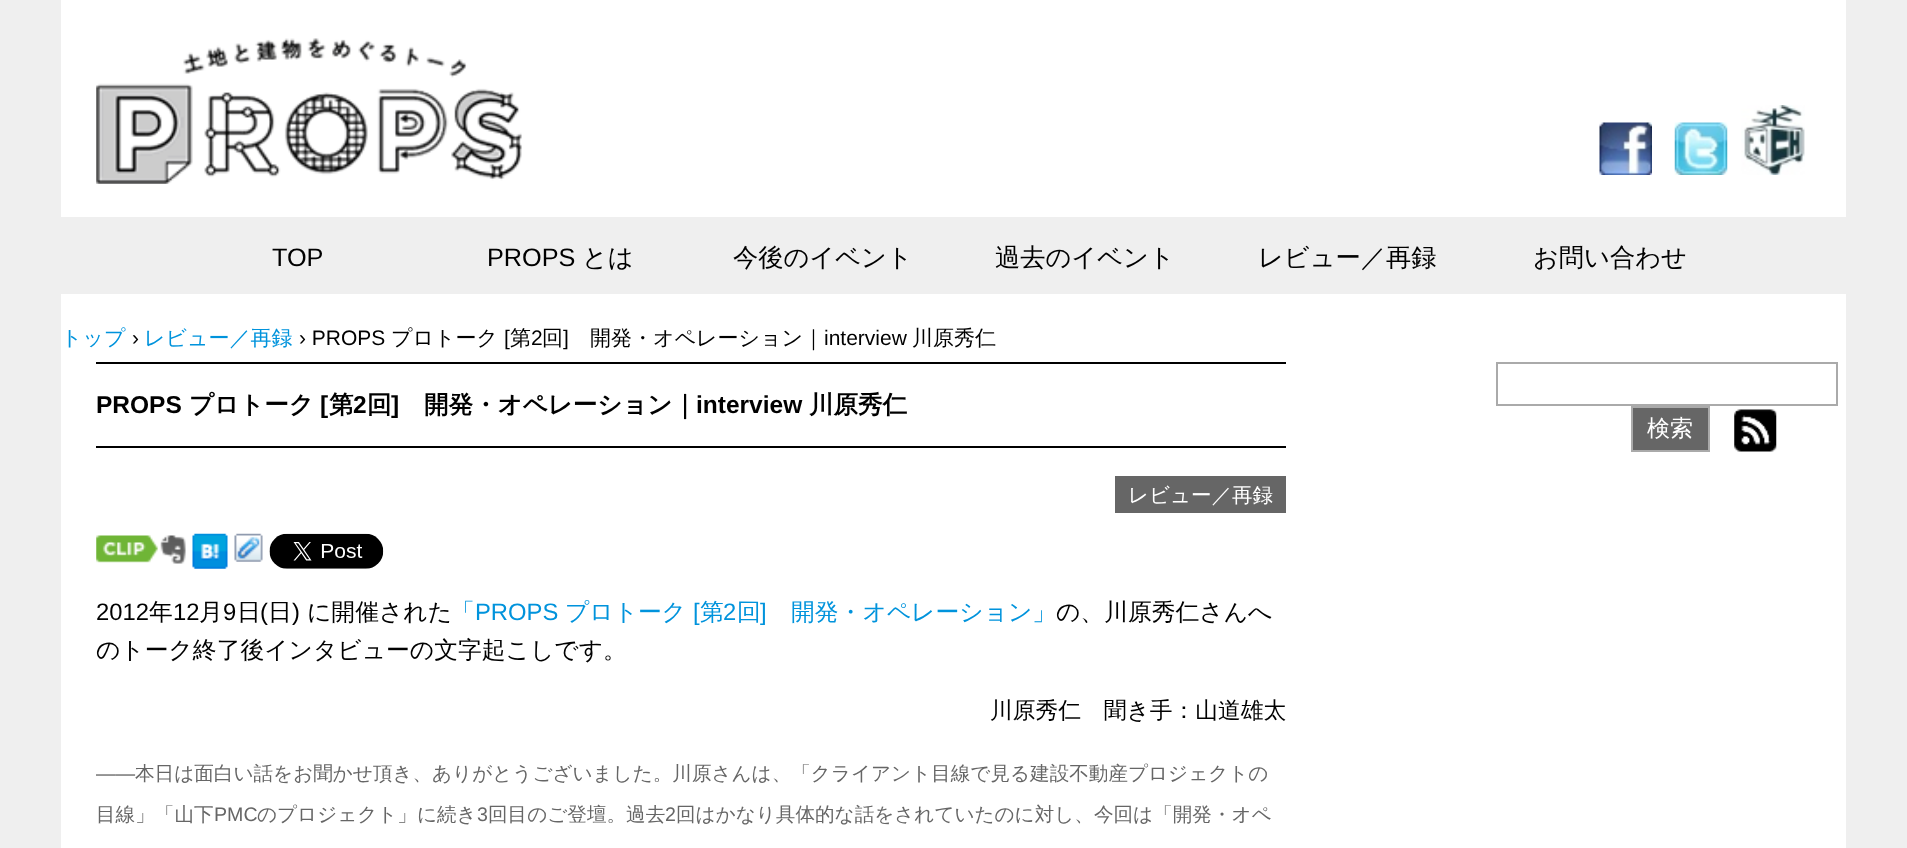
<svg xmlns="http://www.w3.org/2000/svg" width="1907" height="848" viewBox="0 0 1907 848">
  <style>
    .t1 { font: 25.25px Liberation Sans; fill: #000; }
    .t2 { font: 500 25.25px WenQuanYi Zen Hei; fill: #000; }
    .t3 { font: 500 21px WenQuanYi Zen Hei; fill: #0093dc; }
    .t4 { font: 21px Liberation Sans; fill: #000; }
    .t5 { font: 500 21px WenQuanYi Zen Hei; fill: #000; }
    .t6 { font: bold 24.5px Liberation Sans; fill: #000; }
    .t7 { font: bold 24.5px WenQuanYi Zen Hei; fill: #000; }
    .t8 { font: 500 20.5px WenQuanYi Zen Hei; fill: #fff; }
    .t9 { font: 23.8px Liberation Sans; fill: #000; }
    .t10 { font: 500 23.8px WenQuanYi Zen Hei; fill: #000; }
    .t11 { font: 500 23.8px WenQuanYi Zen Hei; fill: #0093dc; }
    .t12 { font: 23.8px Liberation Sans; fill: #0093dc; }
    .t13 { font: 500 22.75px WenQuanYi Zen Hei; fill: #000; }
    .t14 { font: 19.6px Liberation Sans; fill: #666; }
    .t15 { font: 500 19.6px WenQuanYi Zen Hei; fill: #666; }
    .t16 { font: 500 23px WenQuanYi Zen Hei; fill: #fff; }
  </style>
  <rect width="100%" height="100%" fill="#efefef"/>
  <rect x="61" y="0" width="1785" height="848" fill="#fff"/>
  <image x="96" y="38" width="426" height="146" href="images/1.png"/>
  <image x="1599" y="122" width="53" height="53" href="images/2.png"/>
  <image x="1674" y="122" width="54" height="53" href="images/3.png"/>
  <image x="1741" y="105" width="64" height="70" href="images/4.png"/>
  <rect x="61" y="217" width="1785" height="77" fill="#efefef"/>
  <text x="272" y="266" class="t1">TOP</text>
  <text x="487" y="266" class="t1">PROPS</text>
  <text x="582" y="266" class="t2">とは</text>
  <text x="733" y="266" class="t2">今後のイベント</text>
  <text x="995" y="266" class="t2">過去のイベント</text>
  <text x="1258" y="266" class="t2">レビュー／再録</text>
  <text x="1533" y="266" class="t2">お問い合わせ</text>
  <text x="61" y="345" class="t3">トップ</text>
  <text x="132" y="345" class="t4">›</text>
  <text x="144" y="345" class="t3">レビュー／再録</text>
  <text x="299" y="345" class="t4">› PROPS</text>
  <text x="391" y="345" class="t5">プロトーク</text>
  <text x="504" y="345" class="t4">[</text>
  <text x="510" y="345" class="t5">第</text>
  <text x="531" y="345" class="t4">2</text>
  <text x="542" y="345" class="t5">回</text>
  <text x="563" y="345" class="t4">]</text>
  <text x="590" y="345" class="t5">開発・オペレーション｜</text>
  <text x="824" y="345" class="t4">interview</text>
  <text x="912" y="345" class="t5">川原秀仁</text>
  <rect x="96" y="362" width="1190" height="2" fill="#000"/>
  <rect x="96" y="446" width="1190" height="2" fill="#000"/>
  <text x="96" y="413" class="t6">PROPS</text>
  <text x="189" y="413" class="t7">プロトーク</text>
  <text x="320" y="413" class="t6">[</text>
  <text x="329" y="413" class="t7">第</text>
  <text x="353" y="413" class="t6">2</text>
  <text x="367" y="413" class="t7">回</text>
  <text x="391" y="413" class="t6">]</text>
  <text x="424" y="413" class="t7">開発・オペレーション｜</text>
  <text x="696" y="413" class="t6">interview</text>
  <text x="809" y="413" class="t7">川原秀仁</text>
  <rect x="1115" y="476" width="171" height="37" fill="#666"/>
  <text x="1128" y="502" class="t8">レビュー／再録</text>
  <image x="96" y="535" width="90" height="29" href="images/5.png"/>
  <image x="192" y="533" width="36" height="36" href="images/6.png"/>
  <image x="234" y="533" width="29" height="29" href="images/7.png"/>
  <image x="269" y="533" width="115" height="36" href="images/8.png"/>
  <text x="96" y="620" class="t9">2012</text>
  <text x="149" y="620" class="t10">年</text>
  <text x="173" y="620" class="t9">12</text>
  <text x="199" y="620" class="t10">月</text>
  <text x="223" y="620" class="t9">9</text>
  <text x="237" y="620" class="t10">日</text>
  <text x="260" y="620" class="t9">(</text>
  <text x="268" y="620" class="t10">日</text>
  <text x="292" y="620" class="t9">)</text>
  <text x="307" y="620" class="t10">に開催された</text>
  <text x="451" y="620" class="t11">「</text>
  <text x="475" y="620" class="t12">PROPS</text>
  <text x="565" y="620" class="t11">プロトーク</text>
  <text x="693" y="620" class="t12">[</text>
  <text x="700" y="620" class="t11">第</text>
  <text x="723" y="620" class="t12">2</text>
  <text x="737" y="620" class="t11">回</text>
  <text x="760" y="620" class="t12">]</text>
  <text x="791" y="620" class="t11">開発・オペレーション」</text>
  <text x="1056" y="620" class="t10">の、川原秀仁さんへ</text>
  <text x="96" y="658" class="t10">のトーク終了後インタビューの文字起こしです。</text>
  <text x="990" y="718" class="t13">川原秀仁　聞き手：山道雄太</text>
  <text x="96" y="780" class="t14">――</text>
  <text x="135" y="780" class="t15">本日は面白い話をお聞かせ頂き、ありがとうございました。川原さんは、「クライアント目線で見る建設不動産プロジェクトの</text>
  <text x="96" y="821" class="t15">目線」「山下</text>
  <text x="214" y="821" class="t14">PMC</text>
  <text x="257" y="821" class="t15">のプロジェクト」に続き</text>
  <text x="477" y="821" class="t14">3</text>
  <text x="488" y="821" class="t15">回目のご登壇。過去</text>
  <text x="665" y="821" class="t14">2</text>
  <text x="676" y="821" class="t15">回はかなり具体的な話をされていたのに対し、今回は「開発・オペ</text>
  <rect x="1497" y="363" width="340" height="42" fill="none" stroke="#aaa" stroke-width="2"/>
  <rect x="1632" y="407" width="77" height="44" fill="#666" stroke="#aaa" stroke-width="2"/>
  <text x="1647" y="436" class="t16">検索</text>
  <image x="1734" y="409" width="43" height="43" href="images/9.png"/>
</svg>
